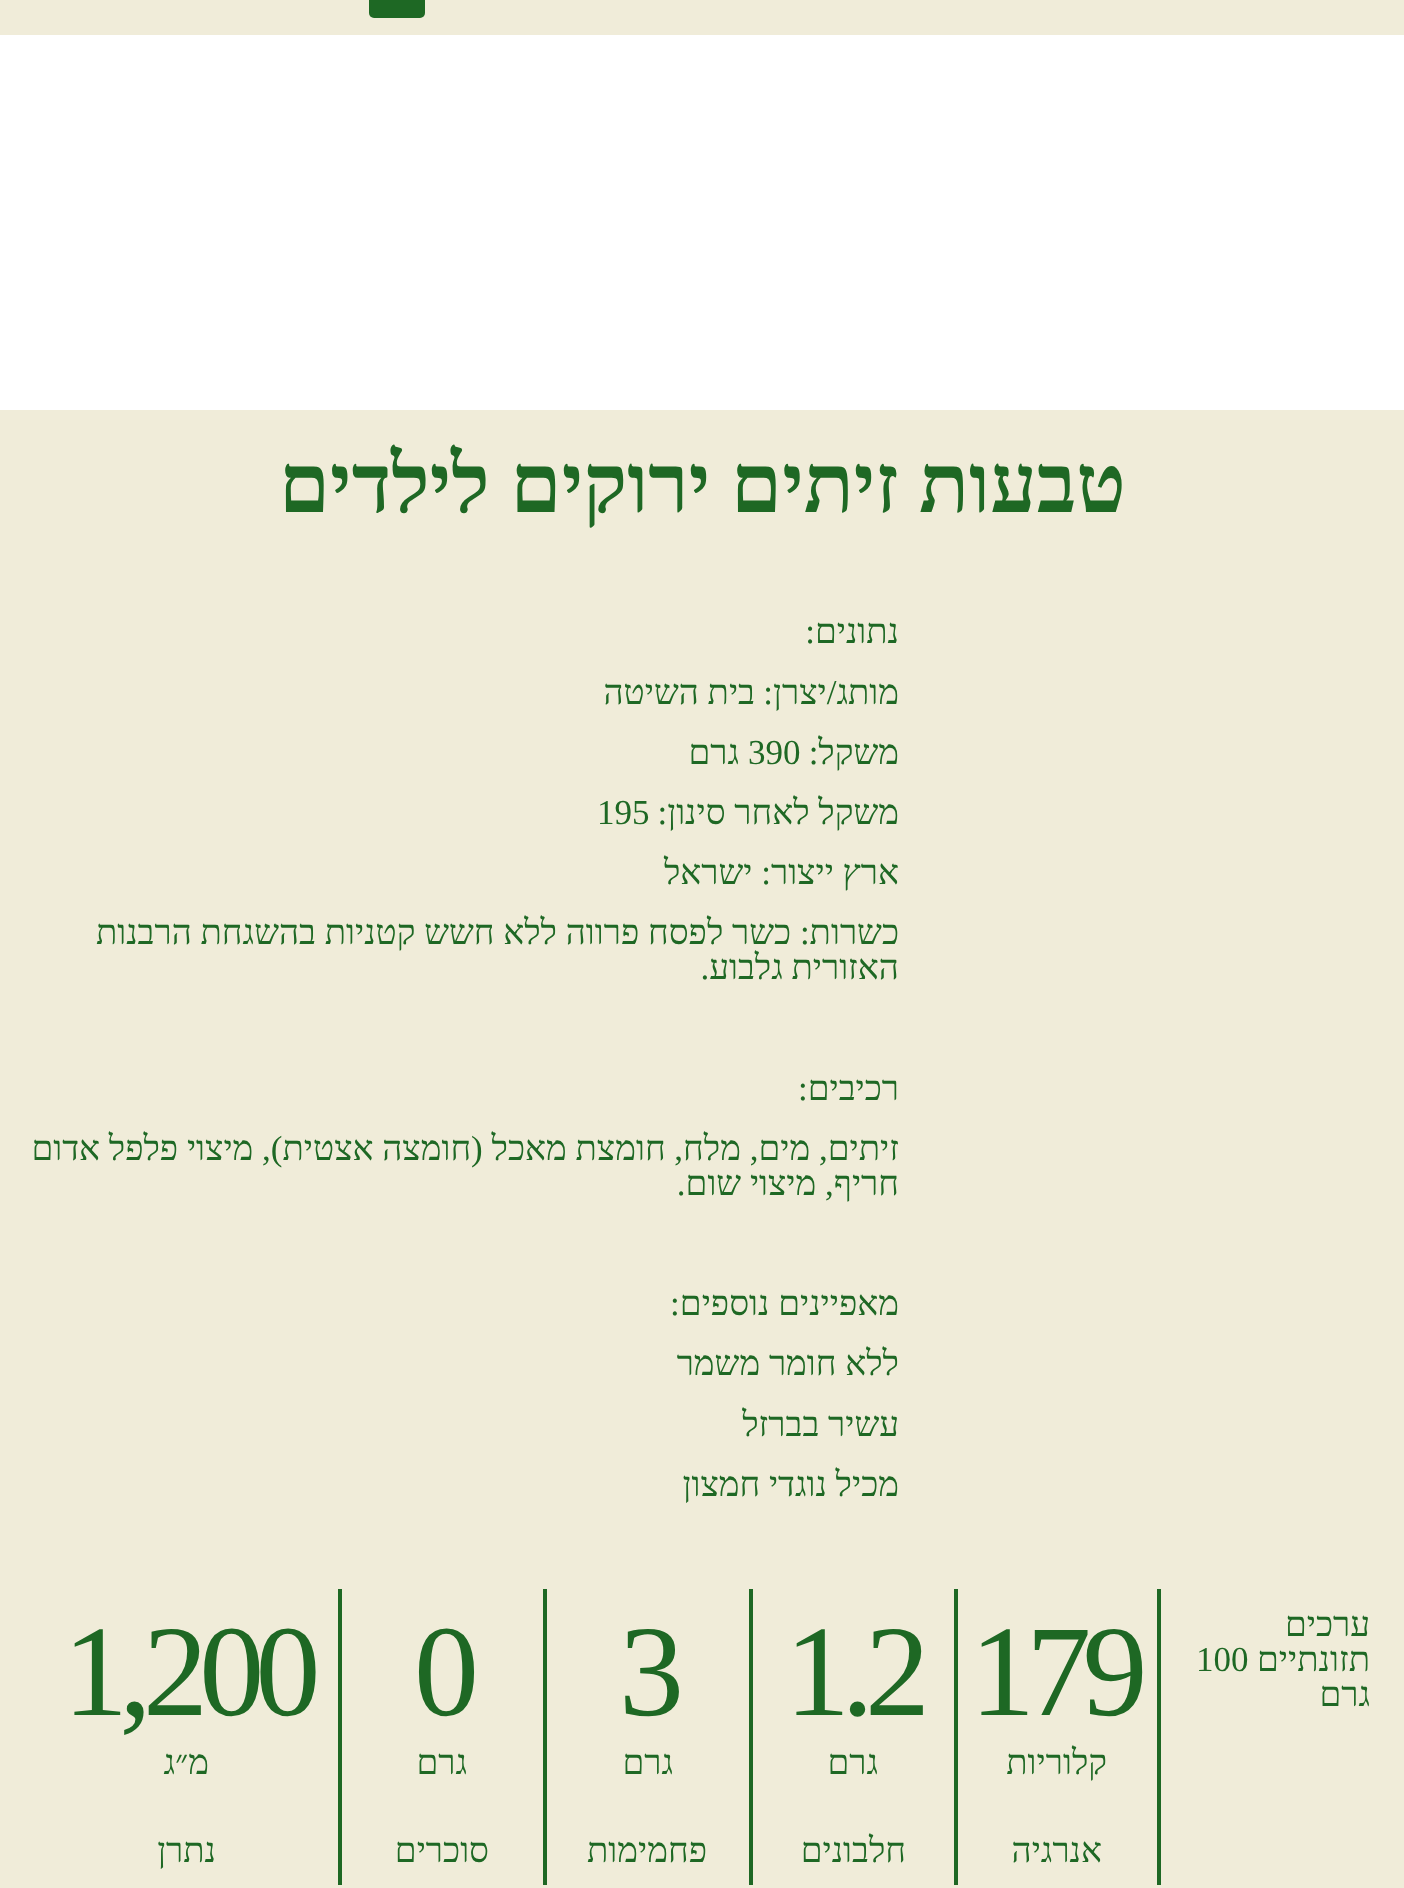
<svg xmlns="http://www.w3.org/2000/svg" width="1404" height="1888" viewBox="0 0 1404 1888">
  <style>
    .t1 { font: bold 82.25px Liberation Serif; direction: rtl; fill: #1e6824; }
    .t2 { font: 35px Liberation Serif; direction: rtl; fill: #1e6824; }
    .t3 { font: 35px Liberation Serif; fill: #1e6824; }
    .t4 { font: 130px Liberation Serif; letter-spacing: -8.75px; fill: #1e6824; }
  </style>
  <rect width="100%" height="100%" fill="#fff"/>
  <rect x="0" y="0" width="1404" height="35" fill="#f0ecd9"/>
  <rect x="369" y="-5" width="56" height="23" rx="5" fill="#1e6824"/>
  <rect x="0" y="410" width="1404" height="1478" fill="#f0ecd9"/>
  <text x="1126" y="512" class="t1">טבעות זיתים ירוקים לילדים</text>
  <text x="899" y="643" class="t2">נתונים:</text>
  <text x="899" y="704" class="t2">מותג/יצרן:</text>
  <text x="755" y="704" class="t2">בית השיטה</text>
  <text x="899" y="764" class="t2">משקל:</text>
  <text x="748" y="764" class="t3">390</text>
  <text x="739" y="764" class="t2">גרם</text>
  <text x="899" y="824" class="t2">משקל לאחר סינון:</text>
  <text x="597" y="824" class="t3">195</text>
  <text x="899" y="884" class="t2">ארץ ייצור: ישראל</text>
  <text x="899" y="944" class="t2">כשרות: כשר לפסח פרווה ללא חשש קטניות בהשגחת הרבנות</text>
  <text x="899" y="979" class="t2">האזורית גלבוע.</text>
  <text x="899" y="1100" class="t2">רכיבים:</text>
  <text x="899" y="1160" class="t2">זיתים, מים, מלח, חומצת מאכל (חומצה אצטית), מיצוי פלפל אדום</text>
  <text x="899" y="1195" class="t2">חריף, מיצוי שום.</text>
  <text x="899" y="1315" class="t2">מאפיינים נוספים:</text>
  <text x="899" y="1375" class="t2">ללא חומר משמר</text>
  <text x="899" y="1436" class="t2">עשיר בברזל</text>
  <text x="899" y="1496" class="t2">מכיל נוגדי חמצון</text>
  <text x="1370" y="1636" class="t2">ערכים</text>
  <text x="1370" y="1671" class="t2">תזונתיים</text>
  <text x="1196" y="1671" class="t3">100</text>
  <text x="1370" y="1706" class="t2">גרם</text>
  <rect x="1157" y="1589" width="4" height="296" fill="#1e6824"/>
  <rect x="954" y="1589" width="4" height="296" fill="#1e6824"/>
  <text x="970" y="1715" class="t4">179</text>
  <text x="1107" y="1774" class="t2">קלוריות</text>
  <text x="1102" y="1862" class="t2">אנרגיה</text>
  <rect x="749" y="1589" width="4" height="296" fill="#1e6824"/>
  <text x="785" y="1715" class="t4">1.2</text>
  <text x="878" y="1774" class="t2">גרם</text>
  <text x="906" y="1862" class="t2">חלבונים</text>
  <rect x="543" y="1589" width="4" height="296" fill="#1e6824"/>
  <text x="619" y="1715" class="t4">3</text>
  <text x="673" y="1774" class="t2">גרם</text>
  <text x="707" y="1862" class="t2">פחמימות</text>
  <rect x="338" y="1589" width="4" height="296" fill="#1e6824"/>
  <text x="414" y="1715" class="t4">0</text>
  <text x="467" y="1774" class="t2">גרם</text>
  <text x="489" y="1862" class="t2">סוכרים</text>
  <text x="63" y="1715" class="t4">1,200</text>
  <text x="209" y="1774" class="t2">מ״ג</text>
  <text x="216" y="1862" class="t2">נתרן</text>
</svg>
